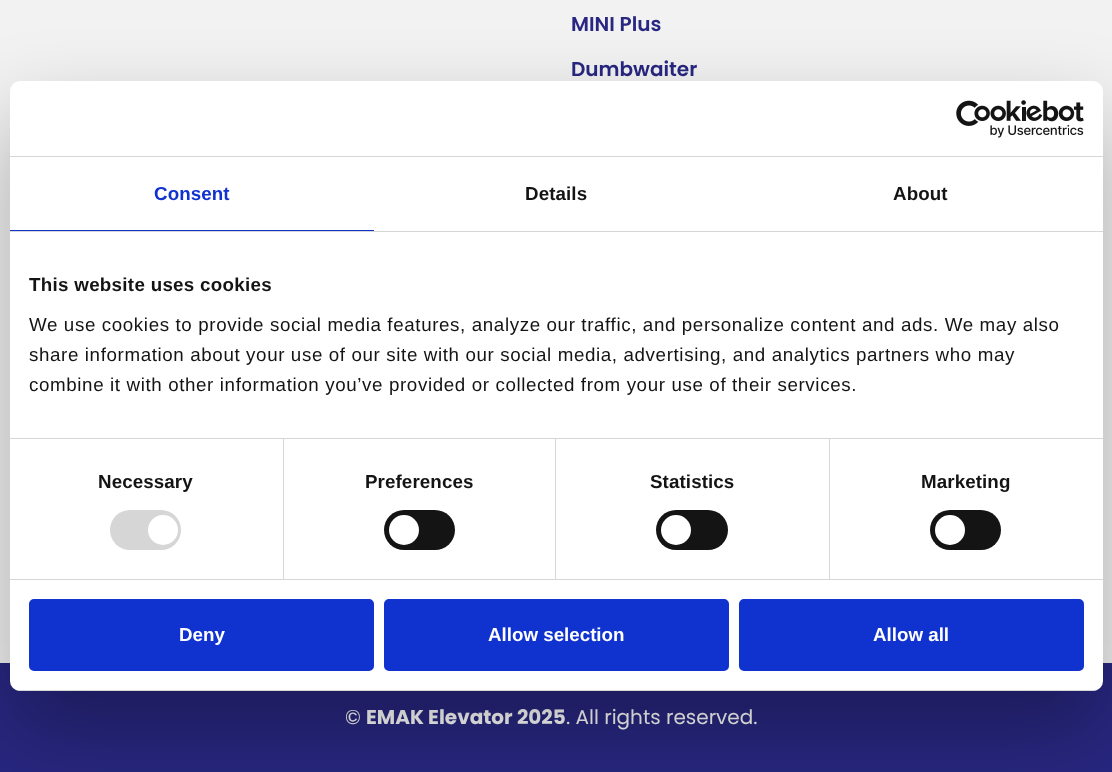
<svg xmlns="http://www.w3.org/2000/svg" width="1112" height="772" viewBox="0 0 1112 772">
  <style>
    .t1 { font: 600 20px Poppins; fill: #282781; }
    .t2 { font: 20px Poppins; fill: #fff; }
    .t3 { font: bold 20px Poppins; fill: #fff; }
    .t4 { font: bold 18.75px Liberation Sans; letter-spacing: 0.1px; fill: #1032cf; }
    .t5 { font: bold 18.75px Liberation Sans; letter-spacing: 0.1px; fill: #141414; }
    .t6 { font: bold 18.75px Liberation Sans; letter-spacing: 0.3px; fill: #141414; }
    .t7 { font: 18.75px Liberation Sans; letter-spacing: 0.62px; fill: #141414; }
    .t8 { font: bold 18.75px Liberation Sans; fill: #fff; }
  </style>
  <defs>
    <clipPath id="clip1"><rect x="10" y="81" width="1093" height="610" rx="10"/></clipPath>
  </defs>
  <rect width="100%" height="100%" fill="#282781"/>
  <rect x="0" y="0" width="1112" height="663" fill="#f2f2f2"/>
  <text x="571" y="31" class="t1">MINI Plus</text>
  <text x="571" y="76" class="t1">Dumbwaiter</text>
  <text x="345" y="724" class="t2">©</text>
  <text x="366" y="724" class="t3">EMAK Elevator 2025</text>
  <text x="566" y="724" class="t2">. All rights reserved.</text>
  <rect x="10" y="121" width="1093" height="610" rx="10" fill="#0000004d" filter="blur(42.5px)"/>
  <rect x="10" y="81" width="1093" height="610" rx="10" fill="#fff"/>
  <rect x="10" y="156" width="1093" height="1" fill="#d6d6d6"/>
  <image x="956" y="100" width="128" height="38" href="images/1.png"/>
  <rect x="10" y="231" width="1093" height="1" fill="#d6d6d6"/>
  <rect x="10" y="230" width="364" height="1" fill="#1032cf"/>
  <text x="154" y="200" class="t4">Consent</text>
  <text x="525" y="200" class="t5">Details</text>
  <text x="893" y="200" class="t5">About</text>
  <rect x="10" y="438" width="1093" height="1" fill="#d6d6d6"/>
  <text x="29" y="291" class="t6">This website uses cookies</text>
  <text x="29" y="331" class="t7">We use cookies to provide social media features, analyze our traffic, and personalize content and ads. We may also</text>
  <text x="29" y="361" class="t7">share information about your use of our site with our social media, advertising, and analytics partners who may</text>
  <text x="29" y="391" class="t7">combine it with other information you’ve provided or collected from your use of their services.</text>
  <rect x="10" y="579" width="1093" height="1" fill="#d6d6d6"/>
  <rect x="283" y="439" width="1" height="140" fill="#d6d6d6"/>
  <text x="98" y="488" class="t5">Necessary</text>
  <rect x="110" y="510" width="71" height="40" rx="20" fill="#d6d6d6"/>
  <circle cx="163" cy="530" r="15" fill="#fff"/>
  <rect x="555" y="439" width="1" height="140" fill="#d6d6d6"/>
  <text x="365" y="488" class="t5">Preferences</text>
  <rect x="384" y="510" width="71" height="40" rx="20" fill="#141414"/>
  <circle cx="404" cy="530" r="15" fill="#fff"/>
  <rect x="829" y="439" width="1" height="140" fill="#d6d6d6"/>
  <text x="650" y="488" class="t5">Statistics</text>
  <rect x="656" y="510" width="72" height="40" rx="20" fill="#141414"/>
  <circle cx="676" cy="530" r="15" fill="#fff"/>
  <text x="921" y="488" class="t5">Marketing</text>
  <rect x="930" y="510" width="71" height="40" rx="20" fill="#141414"/>
  <circle cx="950" cy="530" r="15" fill="#fff"/>
  <g clip-path="url(#clip1)">
    <rect x="10" y="690" width="1093" height="1" fill="#d6d6d6"/>
  </g>
  <rect x="30.5" y="600.5" width="342" height="69" rx="3.5" fill="#1032cf" stroke="#1032cf" stroke-width="3"/>
  <text x="179" y="641" class="t8">Deny</text>
  <rect x="385.5" y="600.5" width="342" height="69" rx="3.5" fill="#1032cf" stroke="#1032cf" stroke-width="3"/>
  <text x="488" y="641" class="t8">Allow selection</text>
  <rect x="740.5" y="600.5" width="342" height="69" rx="3.5" fill="#1032cf" stroke="#1032cf" stroke-width="3"/>
  <text x="873" y="641" class="t8">Allow all</text>
</svg>
